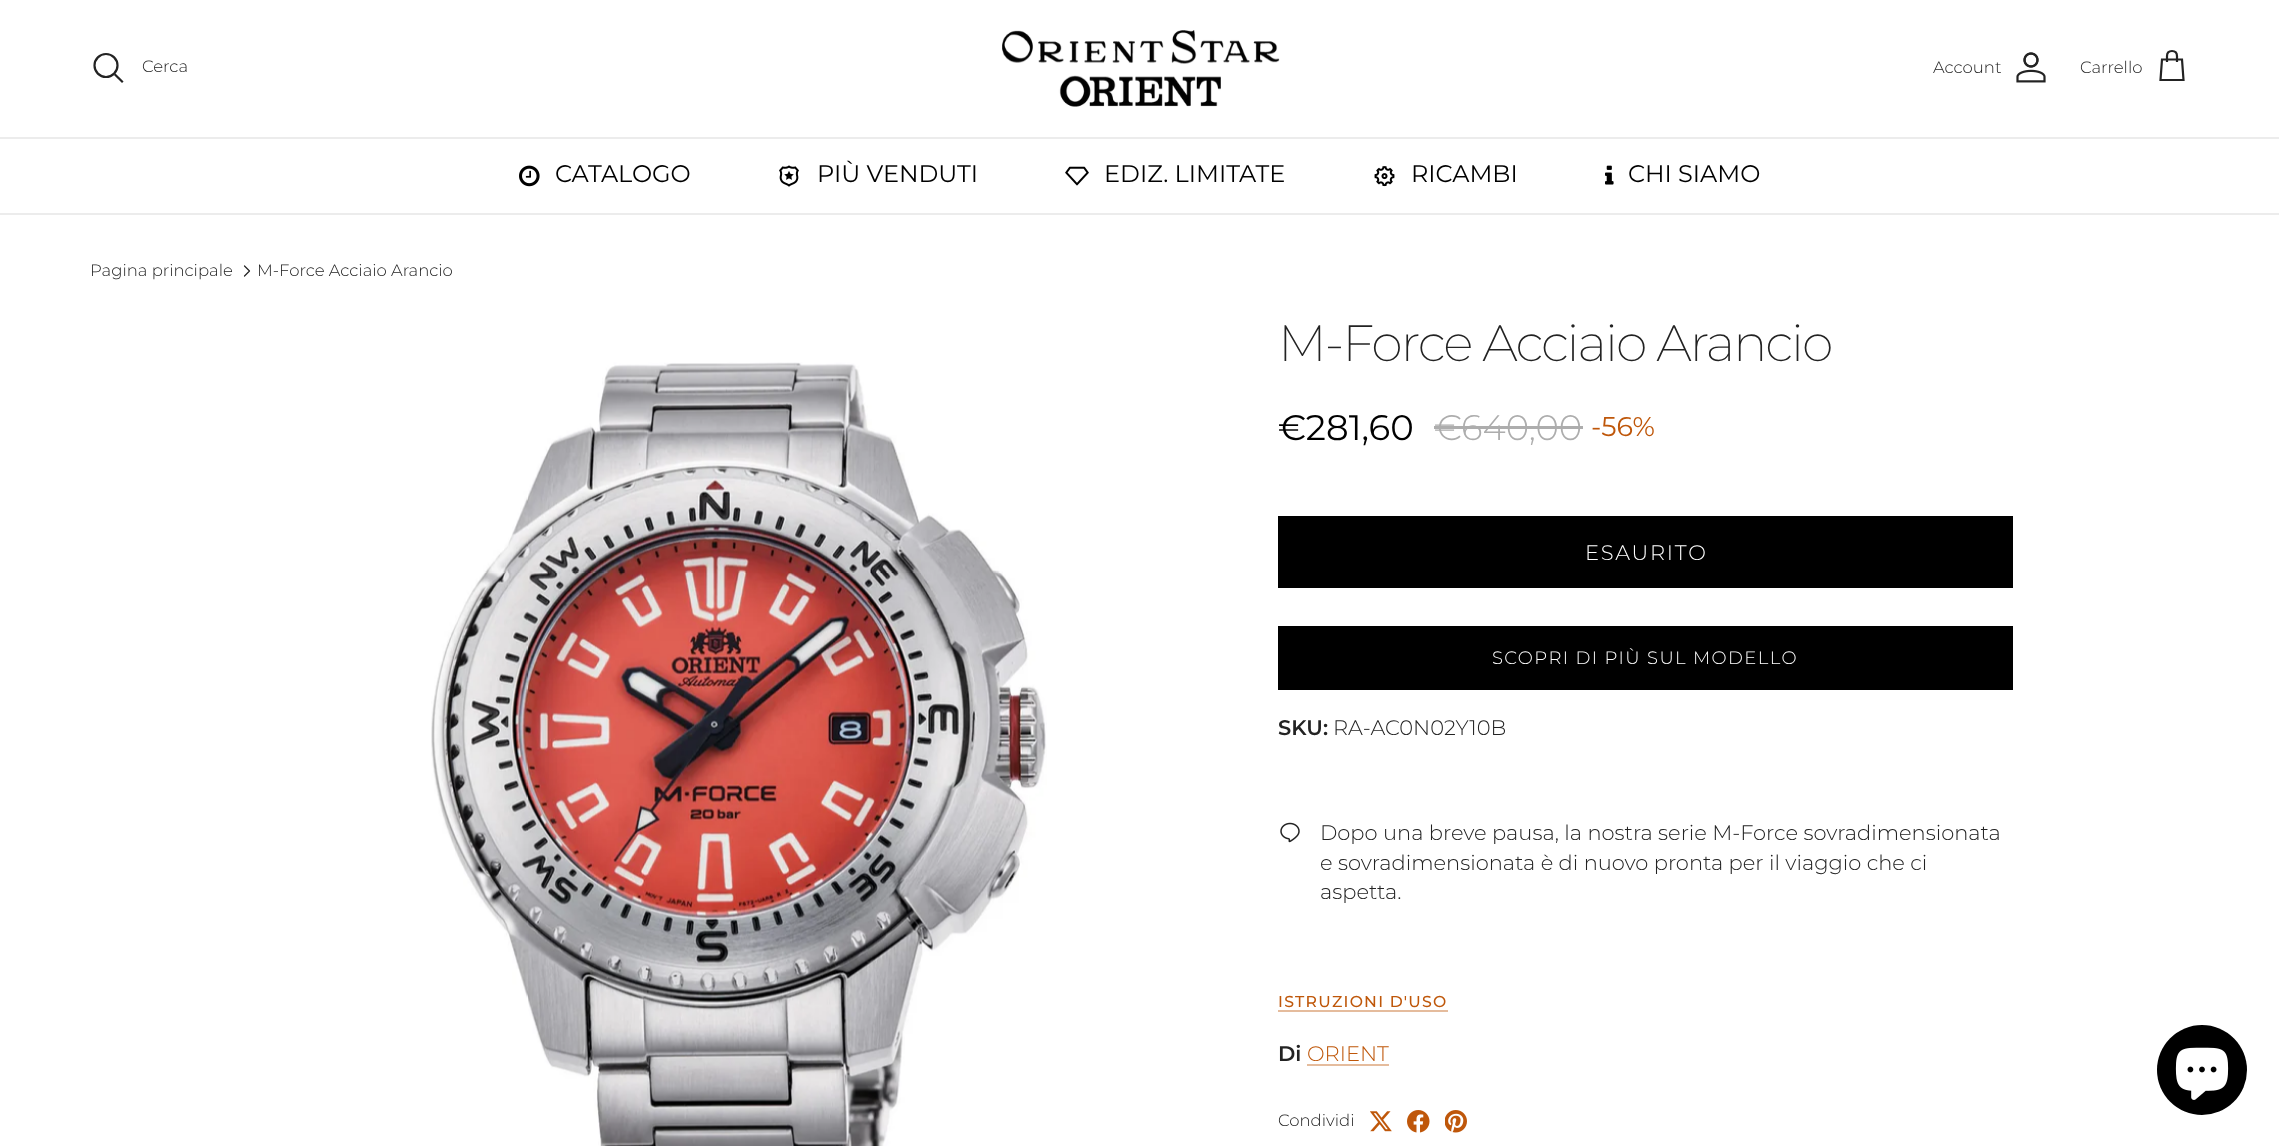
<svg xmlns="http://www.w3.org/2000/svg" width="2279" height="1146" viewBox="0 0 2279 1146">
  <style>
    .t1 { font: 300 16.5px Montserrat; fill: #232323; }
    .t2 { font: 100 24px Montserrat; fill: #000; }
    .t3 { font: 200 51px Montserrat; letter-spacing: -2px; fill: #232323; }
    .t4 { font: 100 35.5px Montserrat; fill: #000; }
    .t5 { font: 300 35.5px Montserrat; fill: #adadad; }
    .t6 { font: 100 27px Montserrat; fill: #bf570a; }
    .t7 { font: 300 21px Montserrat; letter-spacing: 1.75px; fill: #fff; }
    .t8 { font: 300 18px Montserrat; letter-spacing: 1.4px; fill: #fff; }
    .t9 { font: 600 21px Montserrat; fill: #232323; }
    .t10 { font: 300 21px Montserrat; fill: #232323; }
    .t11 { font: 500 15.75px Montserrat; letter-spacing: 1.25px; fill: #bf570a; }
    .t12 { font: 300 21px Montserrat; fill: #bf570a; }
  </style>
  <rect width="100%" height="100%" fill="#fff"/>
  <rect x="0" y="137" width="2279" height="2" fill="#ececec"/>
  <circle cx="106" cy="65.5" r="11.5" fill="none" stroke="#232323" stroke-width="2.2"/>
  <text x="142" y="72" class="t1">Cerca</text>
  <path d="M115.5 75L122 81.5" fill="none" stroke="#232323" stroke-width="2.2" stroke-linecap="square"/>
  <image x="1002" y="30" width="278" height="77" href="images/1.png"/>
  <text x="1933" y="73" class="t1">Account</text>
  <image x="2016" y="52" width="30" height="31" href="images/2.png"/>
  <text x="2080" y="73" class="t1">Carrello</text>
  <path d="M2177 62V56C2177 53 2175 51 2172 51C2169 51 2167 53 2167 56V62M2162 59.5H2182L2183.5 80H2160.5Z" fill="none" stroke="#232323" stroke-width="2.2"/>
  <rect x="0" y="213" width="2279" height="2" fill="#ececec"/>
  <image x="519" y="165" width="21" height="22" href="images/3.png"/>
  <text x="555" y="182" class="t2">CATALOGO</text>
  <image x="779" y="165" width="20" height="22" href="images/4.png"/>
  <text x="817" y="182" class="t2">PIÙ VENDUTI</text>
  <image x="1065" y="166" width="24" height="20" href="images/5.png"/>
  <text x="1104" y="182" class="t2">EDIZ. LIMITATE</text>
  <image x="1374" y="166" width="21" height="21" href="images/6.png"/>
  <text x="1411" y="182" class="t2">RICAMBI</text>
  <image x="1605" y="165" width="9" height="20" href="images/7.png"/>
  <text x="1628" y="182" class="t2">CHI SIAMO</text>
  <text x="90" y="276" class="t1">Pagina principale</text>
  <path d="M244.5 276L249.5 271L244.5 266" fill="none" stroke="#232323" stroke-width="1.2" stroke-linecap="round" stroke-linejoin="round"/>
  <text x="257" y="276" class="t1">M-Force Acciaio Arancio</text>
  <image x="431" y="362" width="616" height="784" href="images/8.png"/>
  <text x="1278" y="361" class="t3">M-Force Acciaio Arancio</text>
  <text x="1278" y="440" class="t4">€281,60</text>
  <text x="1434" y="440" class="t5">€640,00</text>
  <rect x="1434" y="426" width="149" height="3" fill="#adadad"/>
  <text x="1591" y="436" class="t6">-56%</text>
  <rect x="1278" y="516" width="735" height="72" fill="#000"/>
  <text x="1585" y="560" class="t7">ESAURITO</text>
  <rect x="1278" y="626" width="735" height="64" fill="#000"/>
  <text x="1492" y="664" class="t8">SCOPRI DI PIÙ SUL MODELLO</text>
  <text x="1278" y="735" class="t9">SKU:</text>
  <text x="1333" y="735" class="t10">RA-AC0N02Y10B</text>
  <image x="1280" y="822" width="20" height="21" href="images/9.png"/>
  <text x="1320" y="840" class="t10">Dopo una breve pausa, la nostra serie M-Force sovradimensionata</text>
  <text x="1320" y="870" class="t10">e sovradimensionata è di nuovo pronta per il viaggio che ci</text>
  <text x="1320" y="899" class="t10">aspetta.</text>
  <text x="1278" y="1007" class="t11">ISTRUZIONI D'USO</text>
  <rect x="1278" y="1010" width="170" height="2" fill="#e5bc9d"/>
  <text x="1278" y="1061" class="t9">Di</text>
  <text x="1307" y="1061" class="t12">ORIENT</text>
  <rect x="1307" y="1064" width="82" height="2" fill="#e5bc9d"/>
  <text x="1278" y="1126" class="t1">Condividi</text>
  <image x="1370" y="1111" width="22" height="21" href="images/10.png"/>
  <image x="1407" y="1110" width="23" height="23" href="images/11.png"/>
  <image x="1445" y="1110" width="22" height="23" href="images/12.png"/>
  <circle cx="2202" cy="1070" r="45" fill="#000"/>
  <image x="2175" y="1047" width="54" height="53" href="images/13.png"/>
</svg>
